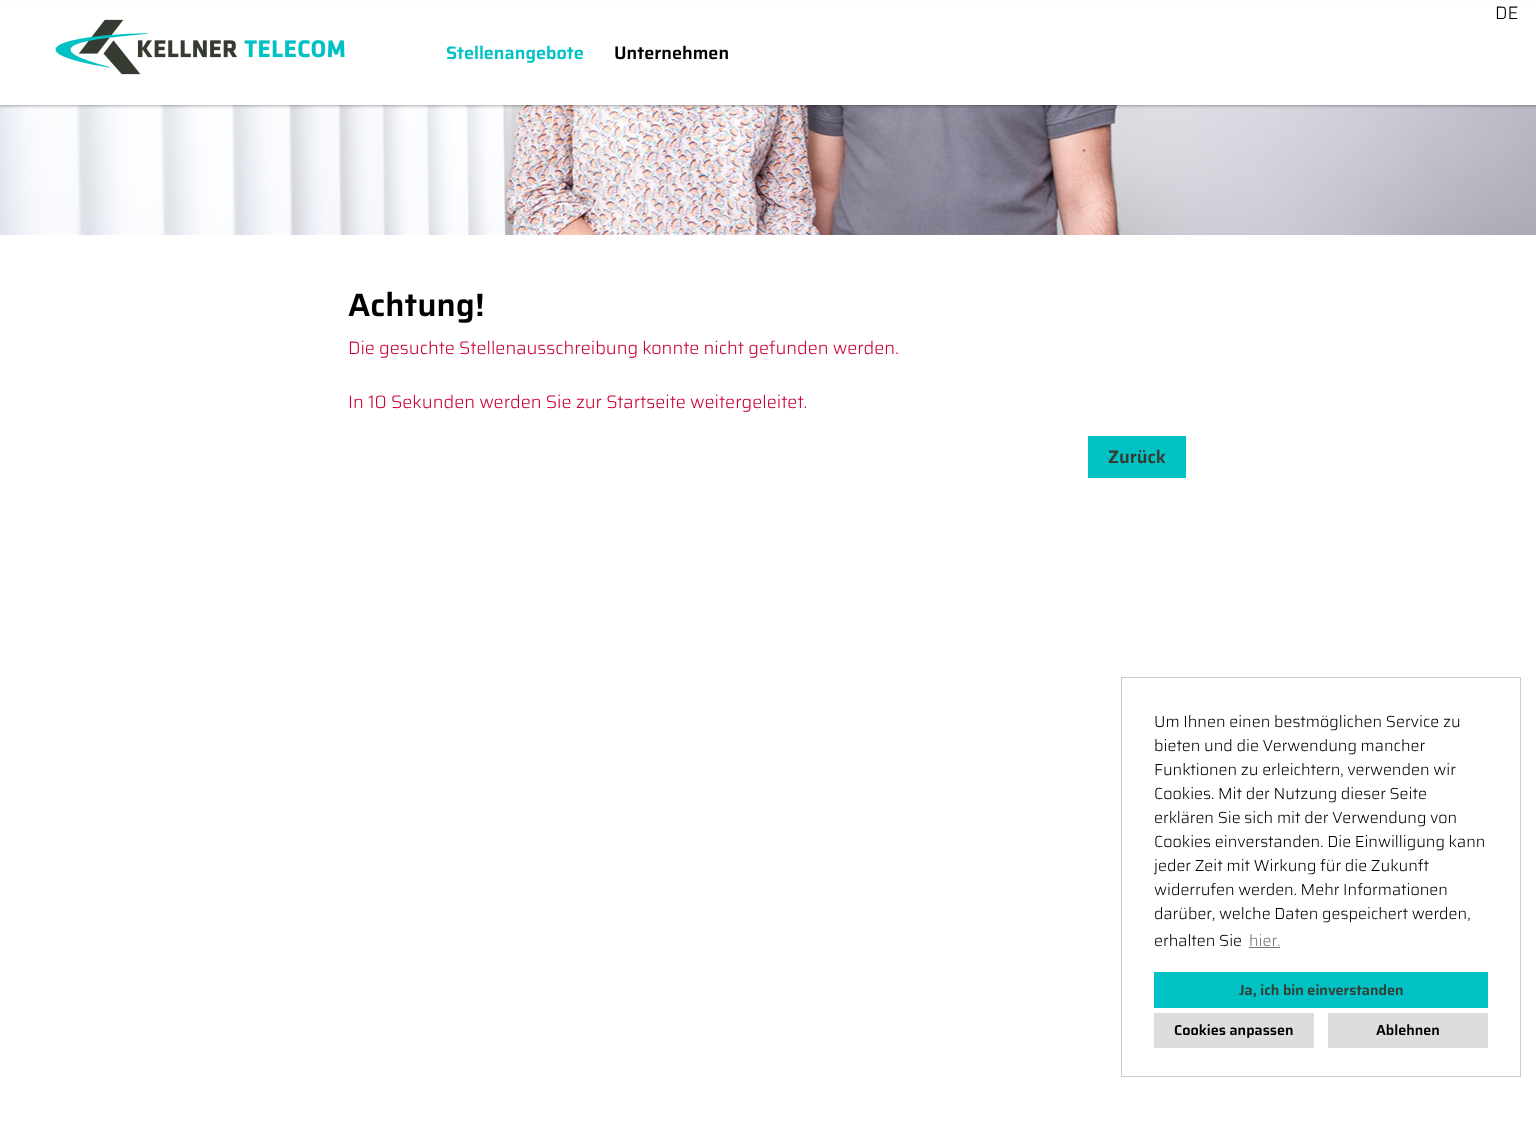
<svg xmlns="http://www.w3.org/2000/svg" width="1536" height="1122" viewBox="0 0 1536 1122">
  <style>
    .t1 { font: 300 18px Saira; fill: #000; }
    .t2 { font: 600 18px Saira; fill: #00c2c4; }
    .t3 { font: 600 18px Saira; fill: #000; }
    .t4 { font: 600 32.5px Saira; fill: #000; }
    .t5 { font: 300 18px Saira; fill: #c03; }
    .t6 { font: 600 18px Saira; fill: #363b31; }
    .t7 { font: 300 16px Saira; fill: #000; }
    .t8 { font: 300 16px Saira; fill: #6f797f; }
    .t9 { font: 600 14.4px Saira; fill: #363b31; }
    .t10 { font: 600 14.4px Saira; fill: #000; }
  </style>
  <rect width="100%" height="100%" fill="#fff"/>
  <image x="0" y="105" width="1536" height="130" href="images/2.png"/>
  <rect x="-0.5" y="-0.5" width="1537" height="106" fill="none" stroke="#00000014"/>
  <rect x="0" y="2" width="1536" height="105" fill="#00000029" filter="blur(1px)"/>
  <rect x="0" y="1" width="1536" height="104" fill="#fff"/>
  <image x="55" y="19" width="290" height="56" href="images/1.png"/>
  <text x="1495" y="19" class="t1">DE</text>
  <text x="446" y="59" class="t2">Stellenangebote</text>
  <text x="614" y="59" class="t3">Unternehmen</text>
  <text x="348" y="316" class="t4">Achtung!</text>
  <text x="348" y="354" class="t5">Die gesuchte Stellenausschreibung konnte nicht gefunden werden.</text>
  <text x="348" y="408" class="t5">In 10 Sekunden werden Sie zur Startseite weitergeleitet.</text>
  <rect x="1088" y="436" width="98" height="42" fill="#00c2c4"/>
  <text x="1108" y="463" class="t6">Zurück</text>
  <rect x="1121.5" y="677.5" width="399" height="399" fill="none" stroke="#ccc"/>
  <text x="1154" y="727" class="t7">Um Ihnen einen bestmöglichen Service zu</text>
  <text x="1154" y="751" class="t7">bieten und die Verwendung mancher</text>
  <text x="1154" y="775" class="t7">Funktionen zu erleichtern, verwenden wir</text>
  <text x="1154" y="799" class="t7">Cookies. Mit der Nutzung dieser Seite</text>
  <text x="1154" y="823" class="t7">erklären Sie sich mit der Verwendung von</text>
  <text x="1154" y="847" class="t7">Cookies einverstanden. Die Einwilligung kann</text>
  <text x="1154" y="871" class="t7">jeder Zeit mit Wirkung für die Zukunft</text>
  <text x="1154" y="895" class="t7">widerrufen werden. Mehr Informationen</text>
  <text x="1154" y="919" class="t7">darüber, welche Daten gespeichert werden,</text>
  <text x="1154" y="946" class="t7">erhalten Sie</text>
  <text x="1249" y="946" class="t8">hier.</text>
  <rect x="1249" y="947" width="31" height="1" fill="#6f797f"/>
  <rect x="1154" y="972" width="334" height="36" fill="#00c2c4"/>
  <text x="1239" y="995" class="t9">Ja, ich bin einverstanden</text>
  <rect x="1154" y="1013" width="160" height="35" fill="#ddd"/>
  <text x="1174" y="1035" class="t10">Cookies anpassen</text>
  <rect x="1328" y="1013" width="160" height="35" fill="#ddd"/>
  <text x="1376" y="1035" class="t10">Ablehnen</text>
</svg>
